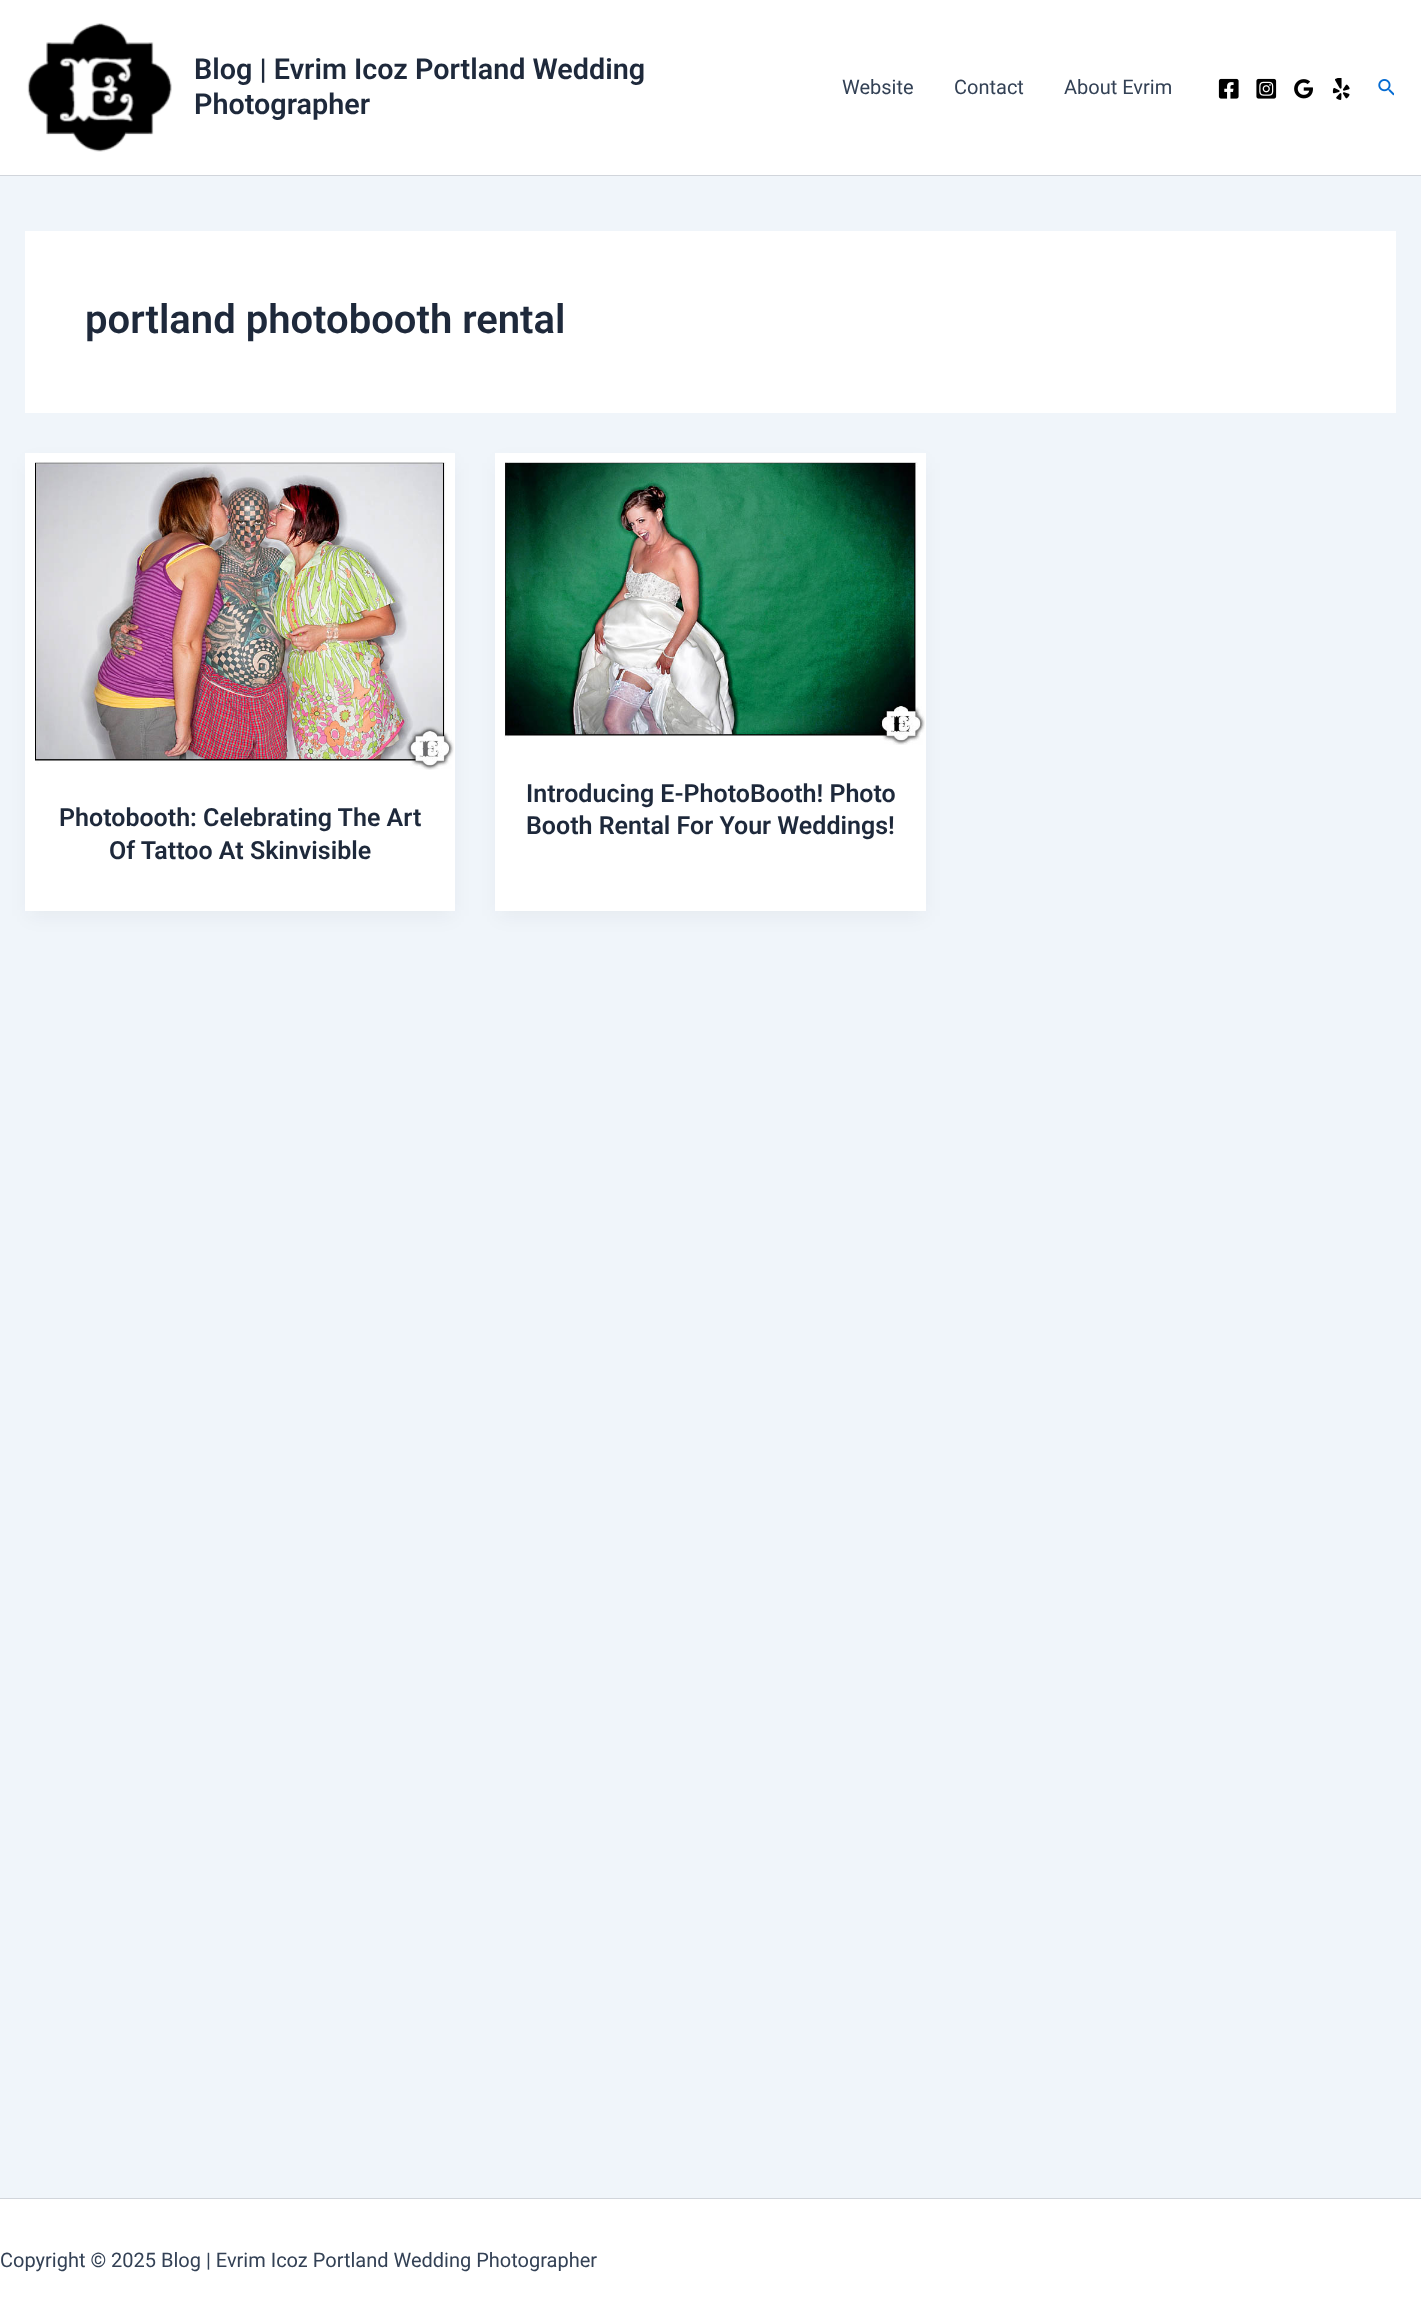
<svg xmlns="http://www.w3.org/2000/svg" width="1421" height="2323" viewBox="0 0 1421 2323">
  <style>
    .t1 { font: 600 28.75px Roboto; fill: #1e293b; }
    .t2 { font: 20px Roboto; fill: #334155; }
    .t3 { font: 600 40px Roboto; fill: #1e293b; }
    .t4 { font: 600 25px Roboto; fill: #1e293b; }
  </style>
  <rect width="100%" height="100%" fill="#f0f5fa"/>
  <rect x="0" y="0" width="1421" height="175" fill="#fff"/>
  <rect x="0" y="175" width="1421" height="1" fill="#d1d5db"/>
  <image x="27" y="23" width="145" height="129" href="images/1.png"/>
  <text x="194" y="79" class="t1">Blog | Evrim Icoz Portland Wedding</text>
  <text x="194" y="114" class="t1">Photographer</text>
  <text x="842" y="94" class="t2">Website</text>
  <text x="954" y="94" class="t2">Contact</text>
  <text x="1064" y="94" class="t2">About Evrim</text>
  <image x="1218" y="78" width="21" height="21" href="images/2.png"/>
  <image x="1256" y="78" width="21" height="21" href="images/3.png"/>
  <image x="1294" y="79" width="19" height="20" href="images/4.png"/>
  <image x="1332" y="78" width="18" height="22" href="images/5.png"/>
  <image x="1378" y="79" width="16" height="17" href="images/6.png"/>
  <rect x="25" y="231" width="1371" height="182" fill="#fff"/>
  <text x="85" y="333" class="t3">portland photobooth rental</text>
  <rect x="28" y="463" width="425" height="453" fill="#1018280d" filter="blur(9.5px)"/>
  <rect x="25" y="453" width="430" height="458" fill="#fff"/>
  <image x="35" y="462" width="419" height="308" href="images/7.png"/>
  <text x="59" y="826" class="t4">Photobooth: Celebrating The Art</text>
  <text x="109" y="859" class="t4">Of Tattoo At Skinvisible</text>
  <rect x="498" y="463" width="426" height="453" fill="#1018280d" filter="blur(9.5px)"/>
  <rect x="495" y="453" width="431" height="458" fill="#fff"/>
  <image x="504" y="462" width="421" height="283" href="images/8.png"/>
  <text x="526" y="802" class="t4">Introducing E-PhotoBooth! Photo</text>
  <text x="526" y="834" class="t4">Booth Rental For Your Weddings!</text>
  <rect x="0" y="2199" width="1421" height="124" fill="#fff"/>
  <rect x="0" y="2198" width="1421" height="1" fill="#d1d5db"/>
  <text x="0" y="2267" class="t2">Copyright © 2025 Blog | Evrim Icoz Portland Wedding Photographer</text>
</svg>
